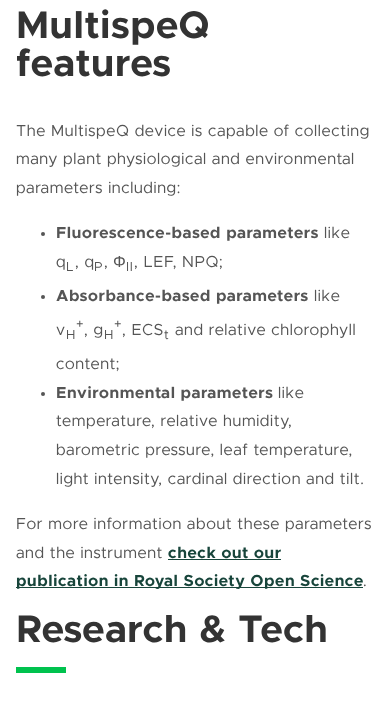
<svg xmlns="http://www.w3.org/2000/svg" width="389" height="708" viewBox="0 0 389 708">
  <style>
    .t1 { font: bold 38.5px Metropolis; letter-spacing: 0.65px; fill: #333; }
    .t2 { font: 16px Metropolis; letter-spacing: 0.65px; fill: #555; }
    .t3 { font: bold 16px Metropolis; letter-spacing: 0.65px; fill: #555; }
    .t4 { font: 13px Metropolis; letter-spacing: 0.65px; fill: #555; }
    .t5 { font: 16px Liberation Sans; letter-spacing: 0.65px; fill: #555; }
    .t6 { font: bold 16px Metropolis; letter-spacing: 0.65px; fill: #18453b; }
  </style>
  <rect width="100%" height="100%" fill="#fff"/>
  <text x="16" y="38" class="t1">MultispeQ</text>
  <text x="16" y="76" class="t1">features</text>
  <text x="16" y="136" class="t2">The MultispeQ device is capable of collecting</text>
  <text x="16" y="164" class="t2">many plant physiological and environmental</text>
  <text x="16" y="193" class="t2">parameters including:</text>
  <circle cx="43" cy="234" r="2" fill="#555"/>
  <text x="56" y="238" class="t3">Fluorescence-based parameters</text>
  <text x="324" y="238" class="t2">like</text>
  <text x="56" y="267" class="t2">q</text>
  <text x="66" y="271" class="t4">L</text>
  <text x="75" y="267" class="t2">, q</text>
  <text x="94" y="271" class="t4">P</text>
  <text x="104" y="267" class="t2">,</text>
  <text x="113" y="267" class="t5">Φ</text>
  <text x="126" y="271" class="t4">II</text>
  <text x="134" y="267" class="t2">, LEF, NPQ;</text>
  <circle cx="43" cy="297" r="2" fill="#555"/>
  <text x="56" y="301" class="t3">Absorbance-based parameters</text>
  <text x="314" y="301" class="t2">like</text>
  <text x="56" y="335" class="t2">v</text>
  <text x="66" y="339" class="t4">H</text>
  <text x="76" y="328" class="t4">+</text>
  <text x="84" y="335" class="t2">, g</text>
  <text x="104" y="339" class="t4">H</text>
  <text x="114" y="328" class="t4">+</text>
  <text x="122" y="335" class="t2">, ECS</text>
  <text x="164" y="339" class="t4">t</text>
  <text x="175" y="335" class="t2">and relative chlorophyll</text>
  <text x="56" y="369" class="t2">content;</text>
  <circle cx="43" cy="394" r="2" fill="#555"/>
  <text x="56" y="398" class="t3">Environmental parameters</text>
  <text x="278" y="398" class="t2">like</text>
  <text x="56" y="426" class="t2">temperature, relative humidity,</text>
  <text x="56" y="455" class="t2">barometric pressure, leaf temperature,</text>
  <text x="56" y="484" class="t2">light intensity, cardinal direction and tilt.</text>
  <text x="16" y="529" class="t2">For more information about these parameters</text>
  <text x="16" y="558" class="t2">and the instrument</text>
  <text x="168" y="558" class="t6">check out our</text>
  <rect x="168" y="559" width="113" height="1" fill="#18453b"/>
  <rect x="16" y="587" width="347" height="1" fill="#18453b"/>
  <text x="16" y="586" class="t6">publication in Royal Society Open Science</text>
  <text x="363" y="586" class="t2">.</text>
  <text x="16" y="642" class="t1">Research &amp; Tech</text>
  <rect x="16" y="667" width="50" height="6" fill="#00c24e"/>
</svg>
